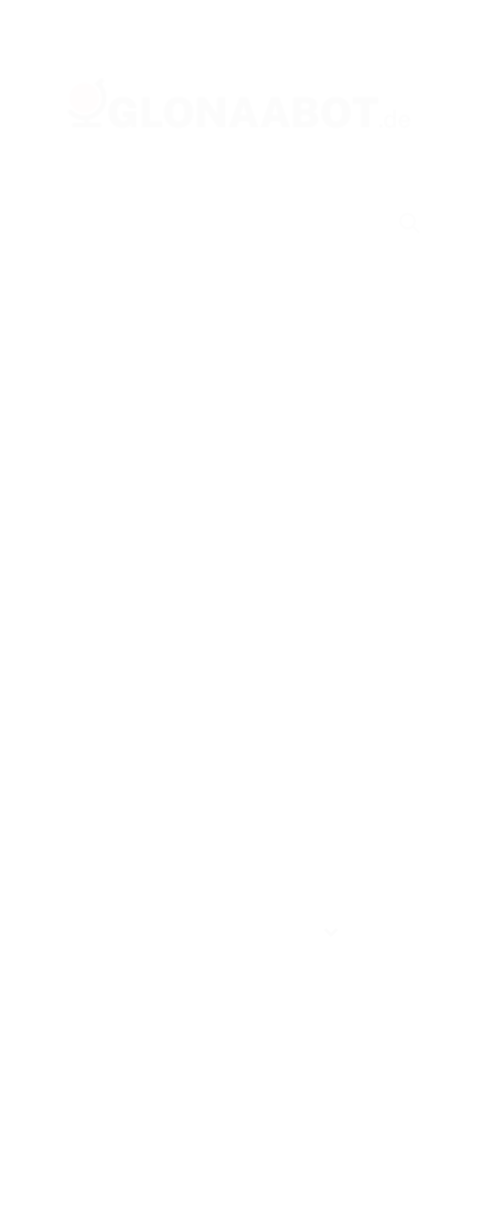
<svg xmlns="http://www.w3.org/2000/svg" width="478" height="1229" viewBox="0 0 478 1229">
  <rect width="100%" height="100%" fill="#fff"/>
  <image x="67" y="78" width="344" height="51" href="images/1.png"/>
  <image x="399" y="212" width="21" height="22" href="images/2.png"/>
  <path d="M325 929L331 935L337 929" fill="none" stroke="#fcfcfc" stroke-width="3"/>
</svg>
